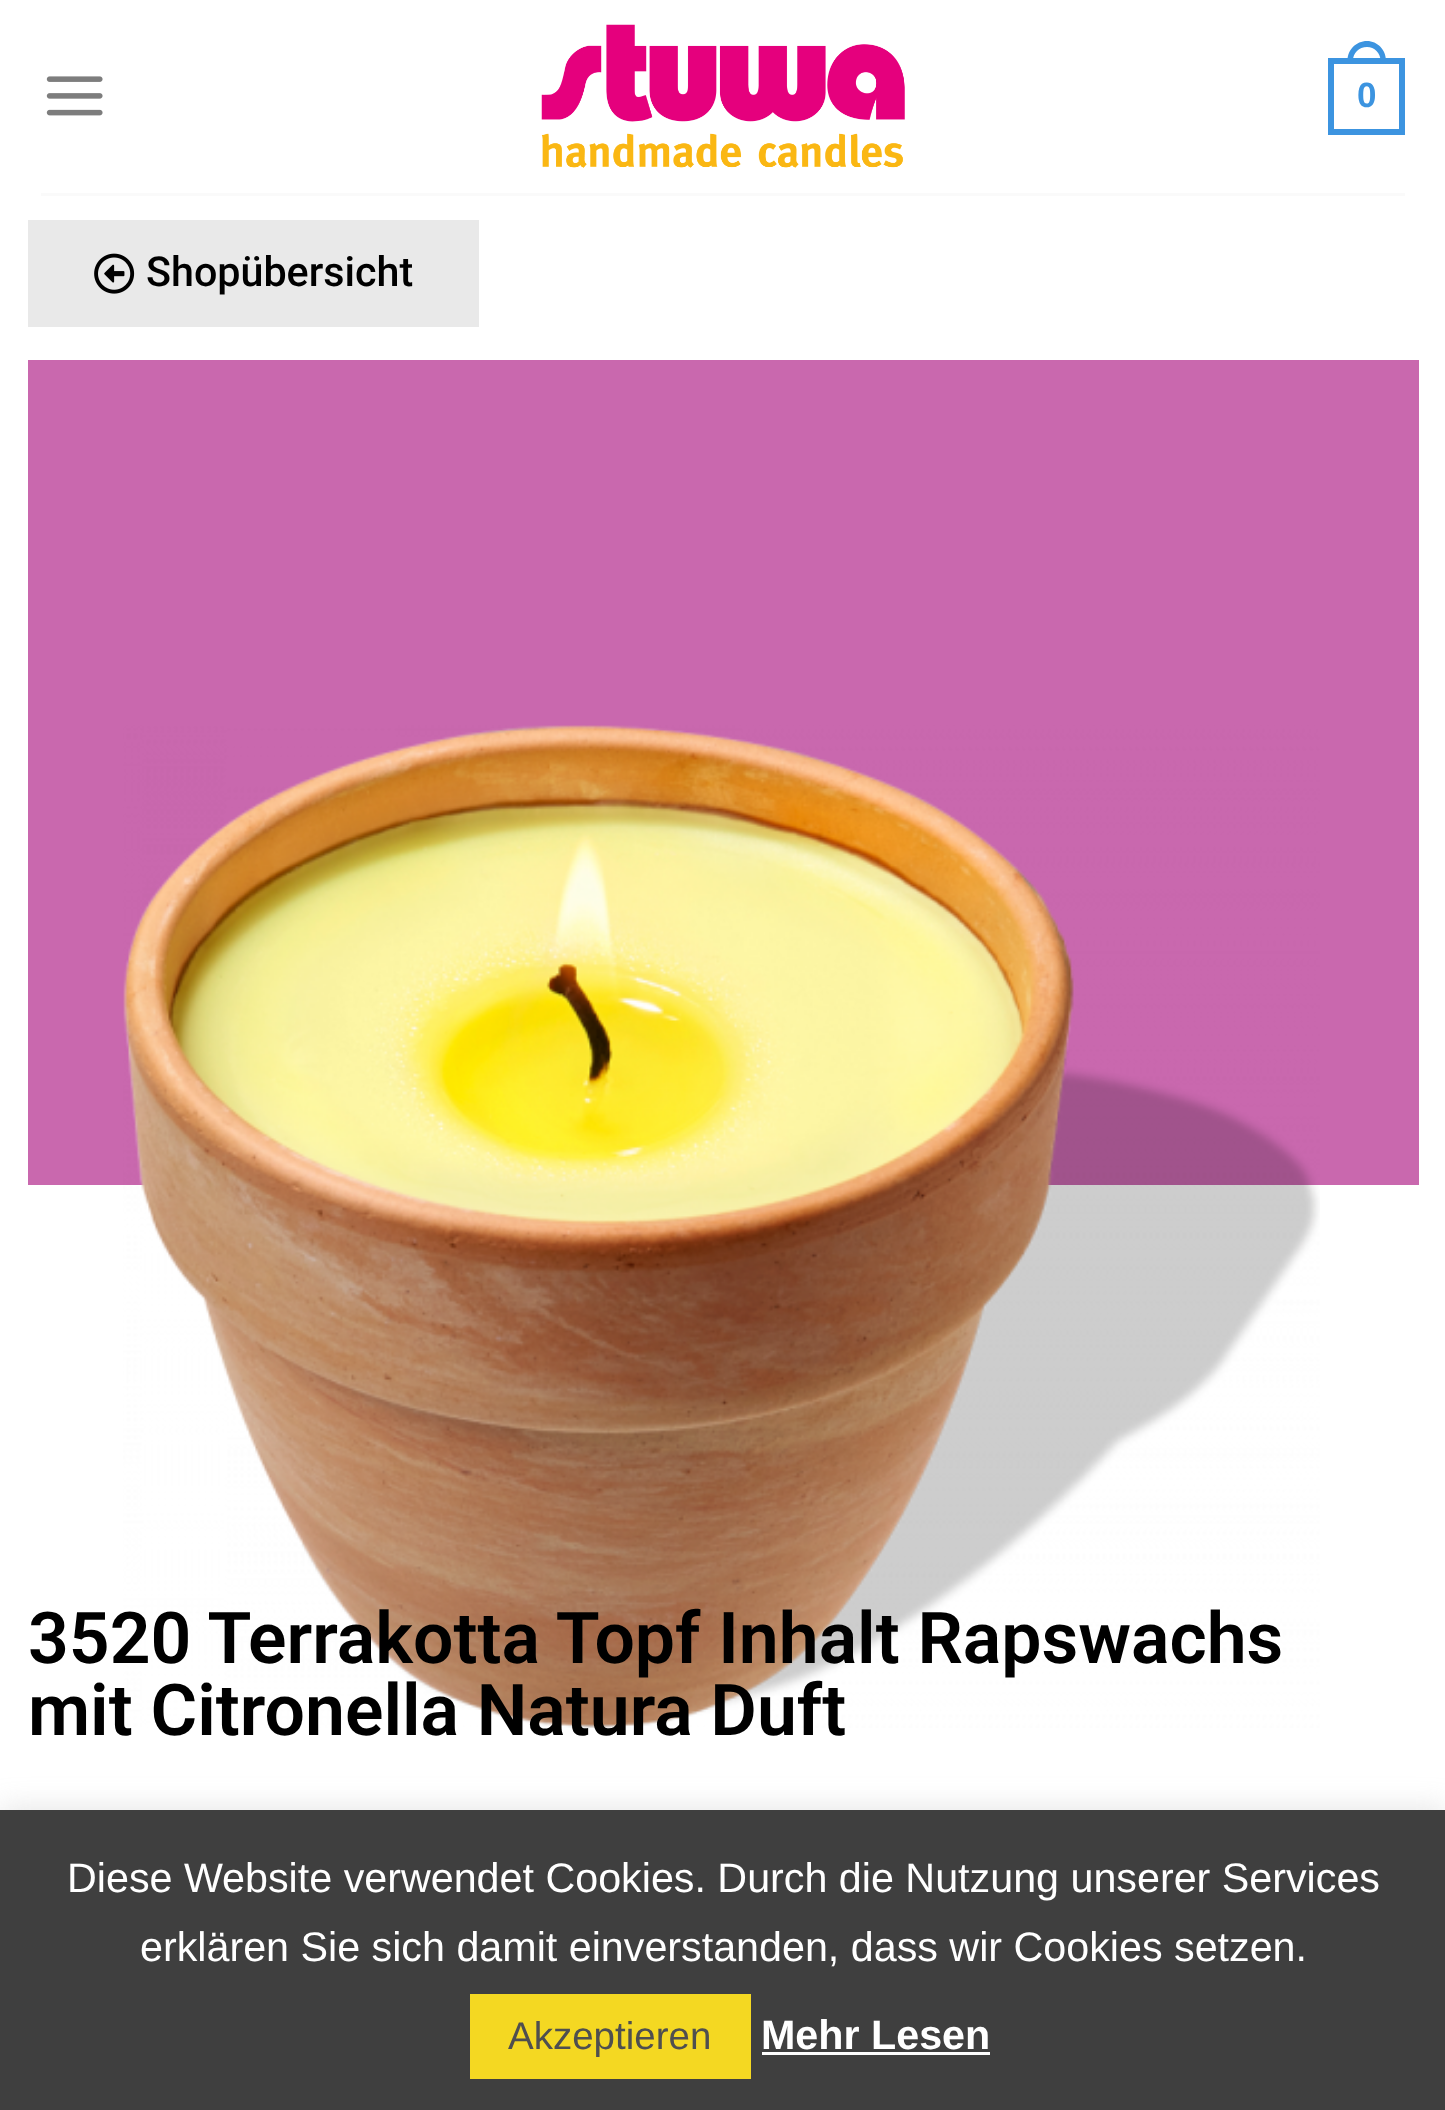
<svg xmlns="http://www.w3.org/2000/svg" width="1445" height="2110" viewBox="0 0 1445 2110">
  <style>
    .t1 { font: bold 35px Liberation Sans; fill: #3c94e0; }
    .t2 { font: 500 41.25px Roboto; fill: #000; }
    .t3 { font: 600 71.5px Roboto; fill: #000; }
    .t4 { font: 41.25px Liberation Sans; fill: #fff; }
    .t5 { font: 38.5px Liberation Sans; fill: #4f4f4f; }
    .t6 { font: bold 41.25px Liberation Sans; fill: #fff; }
  </style>
  <rect width="100%" height="100%" fill="#fff"/>
  <image x="46" y="76" width="57" height="40" href="images/1.png"/>
  <image x="541" y="24" width="364" height="144" href="images/2.png"/>
  <rect x="1331" y="61" width="71" height="71" fill="none" stroke="#3c94e0" stroke-width="6"/>
  <path d="M1367 41C1377.5 41 1386 50 1386 60.5V63H1347.5V60.5C1347.5 50 1356 41 1367 41ZM1367 47C1374.5 47 1380.5 53 1380.5 60.5V63H1353V60.5C1353 53 1359 47 1367 47Z" fill="#3c94e0" fill-rule="evenodd"/>
  <text x="1357" y="107" class="t1">0</text>
  <rect x="41" y="193" width="1364" height="3" fill="#fafafa"/>
  <rect x="28" y="220" width="451" height="107" fill="#e9e9e9"/>
  <image x="94" y="253" width="41" height="41" href="images/3.png"/>
  <text x="146" y="286" class="t2">Shopübersicht</text>
  <rect x="28" y="360" width="1391" height="825" fill="#c968ae"/>
  <image x="123" y="725" width="1197" height="1003" href="images/4.png"/>
  <text x="28" y="1663" class="t3">3520 Terrakotta Topf Inhalt Rapswachs</text>
  <text x="28" y="1735" class="t3">mit Citronella Natura Duft</text>
  <rect x="0" y="1807" width="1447" height="302" fill="#acabab4d" filter="blur(14px)"/>
  <rect x="0" y="1810" width="1445" height="300" fill="#3f3f3f"/>
  <text x="67" y="1892" class="t4">Diese Website verwendet Cookies. Durch die Nutzung unserer Services</text>
  <text x="140" y="1961" class="t4">erklären Sie sich damit einverstanden, dass wir Cookies setzen.</text>
  <rect x="470" y="1994" width="281" height="85" fill="#f4d822"/>
  <text x="508" y="2049" class="t5">Akzeptieren</text>
  <text x="761" y="2049" class="t6">Mehr Lesen</text>
  <rect x="762" y="2052" width="228" height="3" fill="#fff"/>
</svg>
